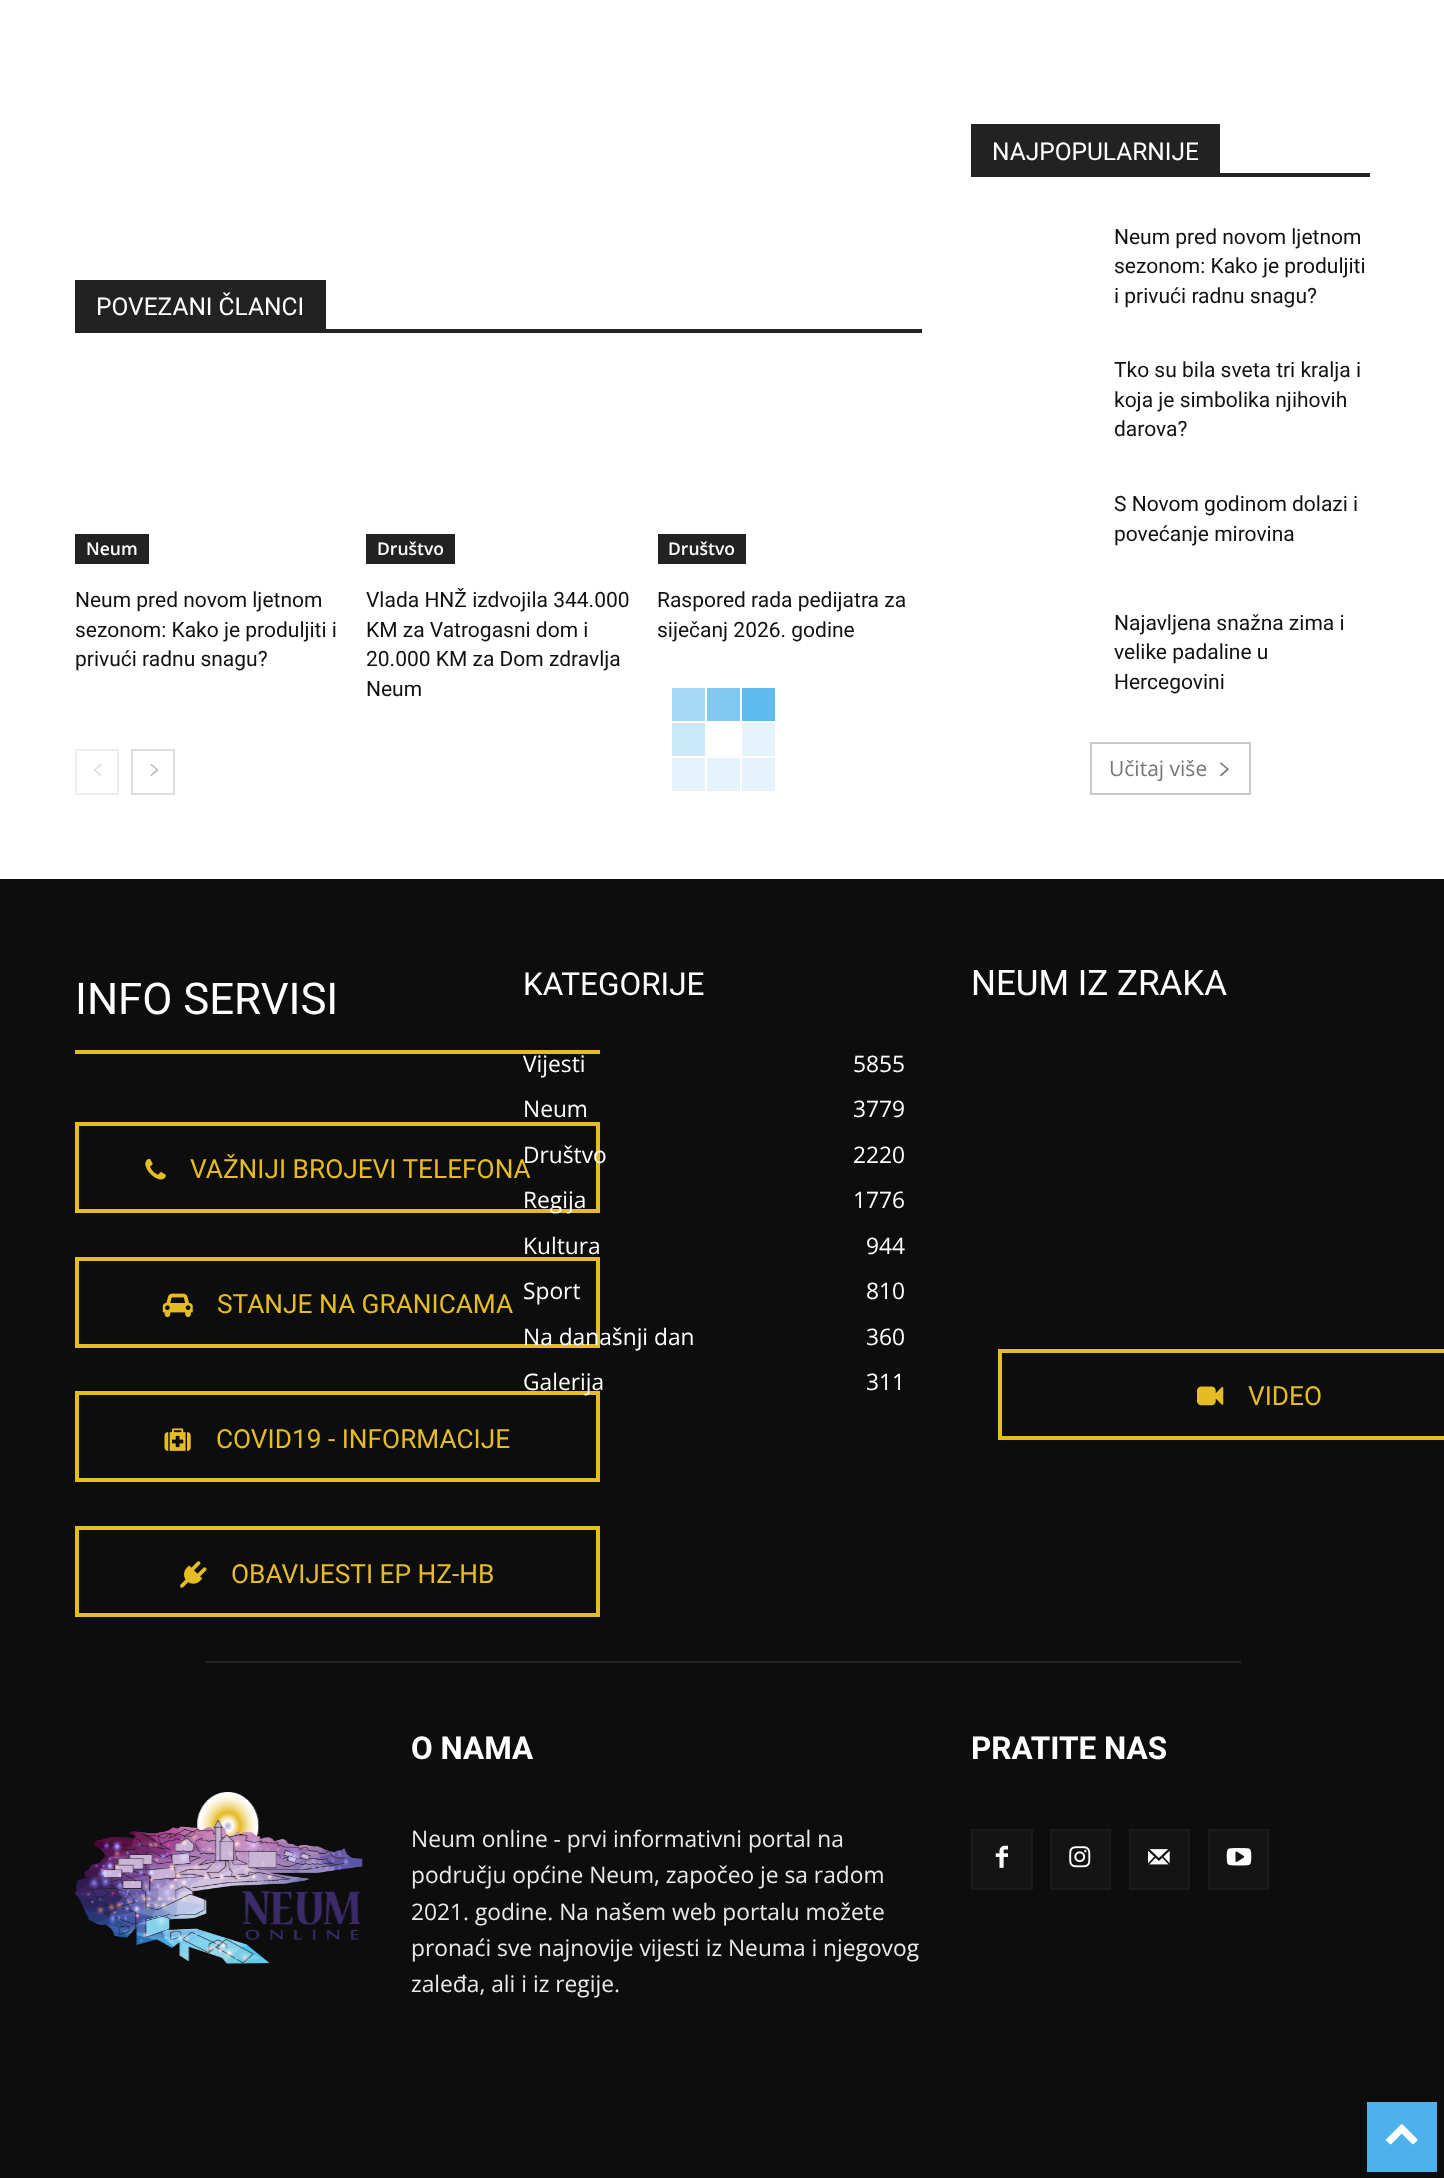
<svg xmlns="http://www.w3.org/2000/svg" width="1444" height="2178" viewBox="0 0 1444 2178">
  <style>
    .t1 { font: 24.5px Roboto; fill: #fff; }
    .t2 { font: 600 17.5px Open Sans; fill: #fff; }
    .t3 { font: 21px Roboto; fill: #111; }
    .t4 { font: 21px Open Sans; fill: #767676; }
    .t5 { font: 43.75px Roboto; fill: #fff; }
    .t6 { font: 26.25px Roboto; fill: #e6bc23; }
    .t7 { font: 31.5px Roboto; fill: #fff; }
    .t8 { font: 22.75px Open Sans; fill: #fff; }
    .t9 { font: 35px Roboto; fill: #fff; }
    .t10 { font: bold 31.5px Roboto; fill: #fff; }
    .t11 { font: 22.75px Open Sans; fill: #eaeaea; }
  </style>
  <rect width="100%" height="100%" fill="#fff"/>
  <rect x="75" y="329" width="847" height="4" fill="#222"/>
  <rect x="75" y="280" width="251" height="49" fill="#222"/>
  <text x="96" y="315" class="t1">POVEZANI ČLANCI</text>
  <rect x="75" y="534" width="74" height="30" fill="#222"/>
  <text x="86" y="555" class="t2">Neum</text>
  <text x="75" y="607" class="t3">Neum pred novom ljetnom</text>
  <text x="75" y="637" class="t3">sezonom: Kako je produljiti i</text>
  <text x="75" y="666" class="t3">privući radnu snagu?</text>
  <rect x="366" y="534" width="89" height="30" fill="#222"/>
  <text x="377" y="555" class="t2">Društvo</text>
  <text x="366" y="607" class="t3">Vlada HNŽ izdvojila 344.000</text>
  <text x="366" y="637" class="t3">KM za Vatrogasni dom i</text>
  <text x="366" y="666" class="t3">20.000 KM za Dom zdravlja</text>
  <text x="366" y="696" class="t3">Neum</text>
  <rect x="658" y="534" width="88" height="30" fill="#222"/>
  <text x="668" y="555" class="t2">Društvo</text>
  <text x="657" y="607" class="t3">Raspored rada pedijatra za</text>
  <text x="657" y="637" class="t3">siječanj 2026. godine</text>
  <rect x="76" y="750" width="42" height="44" fill="none" stroke="#eee" stroke-width="2"/>
  <image x="94" y="764" width="8" height="12" href="images/1.png"/>
  <rect x="132" y="750" width="42" height="44" fill="none" stroke="#dcdcdc" stroke-width="2"/>
  <image x="150" y="764" width="8" height="13" href="images/2.png"/>
  <rect x="971" y="173" width="399" height="4" fill="#222"/>
  <rect x="971" y="124" width="249" height="49" fill="#222"/>
  <text x="992" y="160" class="t1">NAJPOPULARNIJE</text>
  <text x="1114" y="244" class="t3">Neum pred novom ljetnom</text>
  <text x="1114" y="273" class="t3">sezonom: Kako je produljiti</text>
  <text x="1114" y="303" class="t3">i privući radnu snagu?</text>
  <text x="1114" y="377" class="t3">Tko su bila sveta tri kralja i</text>
  <text x="1114" y="407" class="t3">koja je simbolika njihovih</text>
  <text x="1114" y="436" class="t3">darova?</text>
  <text x="1114" y="511" class="t3">S Novom godinom dolazi i</text>
  <text x="1114" y="541" class="t3">povećanje mirovina</text>
  <text x="1114" y="630" class="t3">Najavljena snažna zima i</text>
  <text x="1114" y="659" class="t3">velike padaline u</text>
  <text x="1114" y="689" class="t3">Hercegovini</text>
  <rect x="1091" y="743" width="159" height="51" fill="none" stroke="#c9c9c9" stroke-width="2"/>
  <text x="1109" y="776" class="t4">Učitaj više</text>
  <image x="1220" y="762" width="9" height="15" href="images/3.png"/>
  <rect x="672" y="688" width="33" height="33" fill="#a6d9f6"/>
  <rect x="707" y="688" width="33" height="33" fill="#82c9f2"/>
  <rect x="742" y="688" width="33" height="33" fill="#5fbaee"/>
  <rect x="672" y="723" width="33" height="33" fill="#cae8f9"/>
  <rect x="742" y="723" width="33" height="33" fill="#e4f3fc"/>
  <rect x="672" y="758" width="33" height="33" fill="#e4f3fc"/>
  <rect x="707" y="758" width="33" height="33" fill="#e4f3fc"/>
  <rect x="742" y="758" width="33" height="33" fill="#e4f3fc"/>
  <rect x="0" y="879" width="1444" height="1299" fill="#0d0d0d"/>
  <text x="75" y="1014" class="t5">INFO SERVISI</text>
  <rect x="75" y="1050" width="525" height="4" fill="#e6bc23"/>
  <image x="145" y="1158" width="21" height="22" href="images/4.png"/>
  <rect x="77" y="1124" width="521" height="87" fill="none" stroke="#e6bc23" stroke-width="4"/>
  <text x="190" y="1178" class="t6">VAŽNIJI BROJEVI TELEFONA</text>
  <image x="162" y="1293" width="31" height="24" href="images/5.png"/>
  <rect x="77" y="1259" width="521" height="87" fill="none" stroke="#e6bc23" stroke-width="4"/>
  <text x="217" y="1313" class="t6">STANJE NA GRANICAMA</text>
  <image x="164" y="1428" width="27" height="23" href="images/6.png"/>
  <rect x="77" y="1393" width="521" height="87" fill="none" stroke="#e6bc23" stroke-width="4"/>
  <text x="216" y="1448" class="t6">COVID19 - INFORMACIJE</text>
  <image x="180" y="1561" width="27" height="27" href="images/7.png"/>
  <rect x="77" y="1528" width="521" height="87" fill="none" stroke="#e6bc23" stroke-width="4"/>
  <text x="231" y="1583" class="t6">OBAVIJESTI EP HZ-HB</text>
  <text x="523" y="995" class="t7">KATEGORIJE</text>
  <text x="523" y="1072" class="t8">Vijesti</text>
  <text x="853" y="1072" class="t8">5855</text>
  <text x="523" y="1117" class="t8">Neum</text>
  <text x="853" y="1117" class="t8">3779</text>
  <text x="523" y="1163" class="t8">Društvo</text>
  <text x="853" y="1163" class="t8">2220</text>
  <text x="523" y="1208" class="t8">Regija</text>
  <text x="853" y="1208" class="t8">1776</text>
  <text x="523" y="1254" class="t8">Kultura</text>
  <text x="866" y="1254" class="t8">944</text>
  <text x="523" y="1299" class="t8">Sport</text>
  <text x="866" y="1299" class="t8">810</text>
  <text x="523" y="1345" class="t8">Na današnji dan</text>
  <text x="866" y="1345" class="t8">360</text>
  <text x="523" y="1390" class="t8">Galerija</text>
  <text x="866" y="1390" class="t8">311</text>
  <text x="971" y="995" class="t9">NEUM IZ ZRAKA</text>
  <image x="1197" y="1386" width="27" height="20" href="images/8.png"/>
  <rect x="1000" y="1351" width="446" height="87" fill="none" stroke="#e6bc23" stroke-width="4"/>
  <text x="1248" y="1405" class="t6">VIDEO</text>
  <rect x="205" y="1661" width="1036" height="2" fill="#252525"/>
  <text x="411" y="1759" class="t10">O NAMA</text>
  <text x="411" y="1847" class="t11">Neum online - prvi informativni portal na</text>
  <text x="411" y="1883" class="t11">području općine Neum, započeo je sa radom</text>
  <text x="411" y="1920" class="t11">2021. godine. Na našem web portalu možete</text>
  <text x="411" y="1956" class="t11">pronaći sve najnovije vijesti iz Neuma i njegovog</text>
  <text x="411" y="1992" class="t11">zaleđa, ali i iz regije.</text>
  <text x="971" y="1759" class="t10">PRATITE NAS</text>
  <rect x="972" y="1830" width="60" height="59" fill="#141414" stroke="#1b1b1b" stroke-width="2"/>
  <image x="995" y="1845" width="13" height="23" href="images/9.png"/>
  <rect x="1051" y="1830" width="59" height="59" fill="#141414" stroke="#1b1b1b" stroke-width="2"/>
  <image x="1069" y="1846" width="22" height="22" href="images/10.png"/>
  <rect x="1130" y="1830" width="59" height="59" fill="#141414" stroke="#1b1b1b" stroke-width="2"/>
  <image x="1148" y="1849" width="22" height="16" href="images/11.png"/>
  <rect x="1209" y="1830" width="59" height="59" fill="#141414" stroke="#1b1b1b" stroke-width="2"/>
  <image x="1226" y="1848" width="26" height="18" href="images/12.png"/>
  <image x="75" y="1792" width="288" height="172" href="images/13.png"/>
  <rect x="1367" y="2102" width="70" height="70" fill="#4db2ec"/>
  <image x="1386" y="2124" width="32" height="21" href="images/14.png"/>
</svg>
